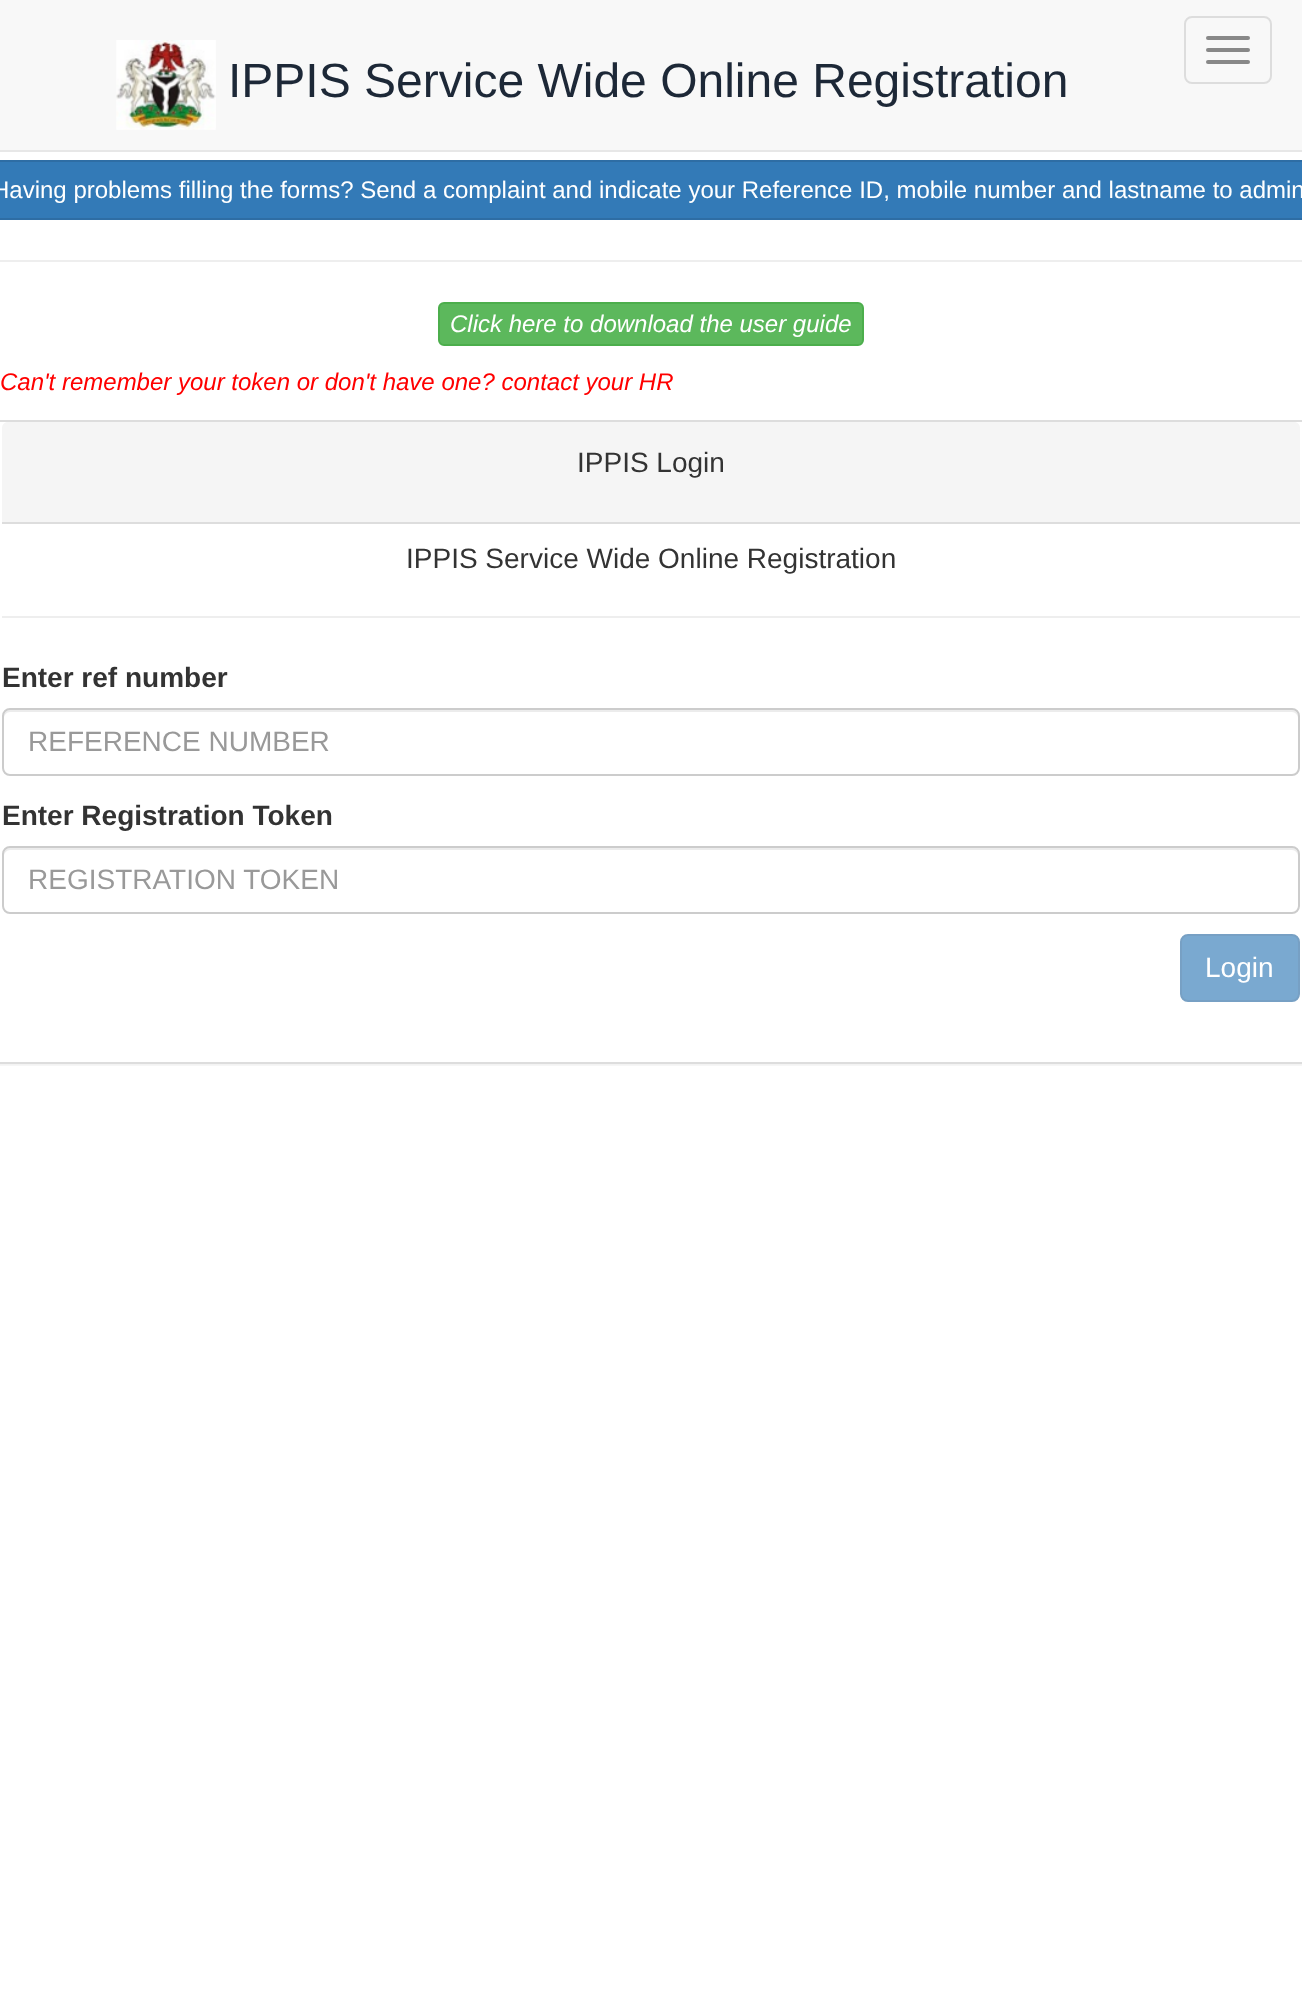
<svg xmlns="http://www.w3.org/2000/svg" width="1302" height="1991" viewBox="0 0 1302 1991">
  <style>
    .t1 { font: 48px Liberation Sans; fill: #1d2837; }
    .t2 { font: 24px Liberation Sans; fill: #fff; }
    .t3 { font: italic 24px Liberation Sans; fill: #fff; }
    .t4 { font: italic 24px Liberation Sans; fill: #f00; }
    .t5 { font: 28px Liberation Sans; fill: #333; }
    .t6 { font: bold 28px Liberation Sans; fill: #333; }
    .t7 { font: 28px Liberation Sans; fill: #999; }
    .t8 { font: 28px Liberation Sans; fill: #fff; }
  </style>
  <defs>
    <clipPath id="clip1"><rect x="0" y="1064" width="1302" height="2"/></clipPath>
  </defs>
  <rect width="100%" height="100%" fill="#fff"/>
  <rect x="0" y="0" width="1302" height="150" fill="#f8f8f8"/>
  <rect x="0" y="150" width="1302" height="2" fill="#e7e7e7"/>
  <image x="116" y="40" width="100" height="90" href="images/1.png"/>
  <text x="228" y="97" class="t1">IPPIS Service Wide Online Registration</text>
  <rect x="1185" y="17" width="86" height="66" rx="7" fill="none" stroke="#ddd" stroke-width="2"/>
  <rect x="1206" y="36" width="44" height="4" rx="2" fill="#888"/>
  <rect x="1206" y="48" width="44" height="4" rx="2" fill="#888"/>
  <rect x="1206" y="60" width="44" height="4" rx="2" fill="#888"/>
  <rect x="-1" y="161" width="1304" height="58" fill="#337ab7" stroke="#2e6da4" stroke-width="2"/>
  <text x="-8" y="198" class="t2">Having problems filling the forms? Send a complaint and indicate your Reference ID, mobile number and lastname to admin</text>
  <rect x="0" y="260" width="1302" height="2" fill="#eee"/>
  <rect x="439" y="303" width="424" height="42" rx="5" fill="#5cb85c" stroke="#4cae4c" stroke-width="2"/>
  <text x="450" y="332" class="t3">Click here to download the user guide</text>
  <text x="0" y="390" class="t4">Can't remember your token or don't have one? contact your HR</text>
  <g clip-path="url(#clip1)">
    <rect x="-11" y="422" width="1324" height="644" rx="8" fill="#0000000d" filter="blur(1px)"/>
  </g>
  <rect x="-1" y="421" width="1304" height="642" fill="none" stroke="#ddd" stroke-width="2"/>
  <path d="M8 422H1294C1297.5 422 1300 424.5 1300 428V524H2V428C2 424.5 4.5 422 8 422Z" fill="#f5f5f5"/>
  <rect x="2" y="522" width="1298" height="2" fill="#ddd"/>
  <text x="577" y="472" class="t5">IPPIS Login</text>
  <text x="406" y="568" class="t5">IPPIS Service Wide Online Registration</text>
  <rect x="2" y="616" width="1298" height="2" fill="#eee"/>
  <text x="2" y="687" class="t6">Enter ref number</text>
  <path d="M10 712H1292C1295 712 1298 715 1298 718V716C1298 713 1295 710 1292 710H10C7 710 4 713 4 716V718C4 715 7 712 10 712Z" fill="#ececec"/>
  <rect x="3" y="709" width="1296" height="66" rx="7" fill="none" stroke="#ccc" stroke-width="2"/>
  <text x="28" y="751" class="t7">REFERENCE NUMBER</text>
  <text x="2" y="825" class="t6">Enter Registration Token</text>
  <path d="M10 850H1292C1295 850 1298 853 1298 856V854C1298 851 1295 848 1292 848H10C7 848 4 851 4 854V856C4 853 7 850 10 850Z" fill="#ececec"/>
  <rect x="3" y="847" width="1296" height="66" rx="7" fill="none" stroke="#ccc" stroke-width="2"/>
  <text x="28" y="889" class="t7">REGISTRATION TOKEN</text>
  <rect x="1181" y="935" width="118" height="66" rx="7" fill="#7aa9d0" stroke="#77a0c4" stroke-width="2"/>
  <text x="1205" y="977" class="t8">Login</text>
</svg>
